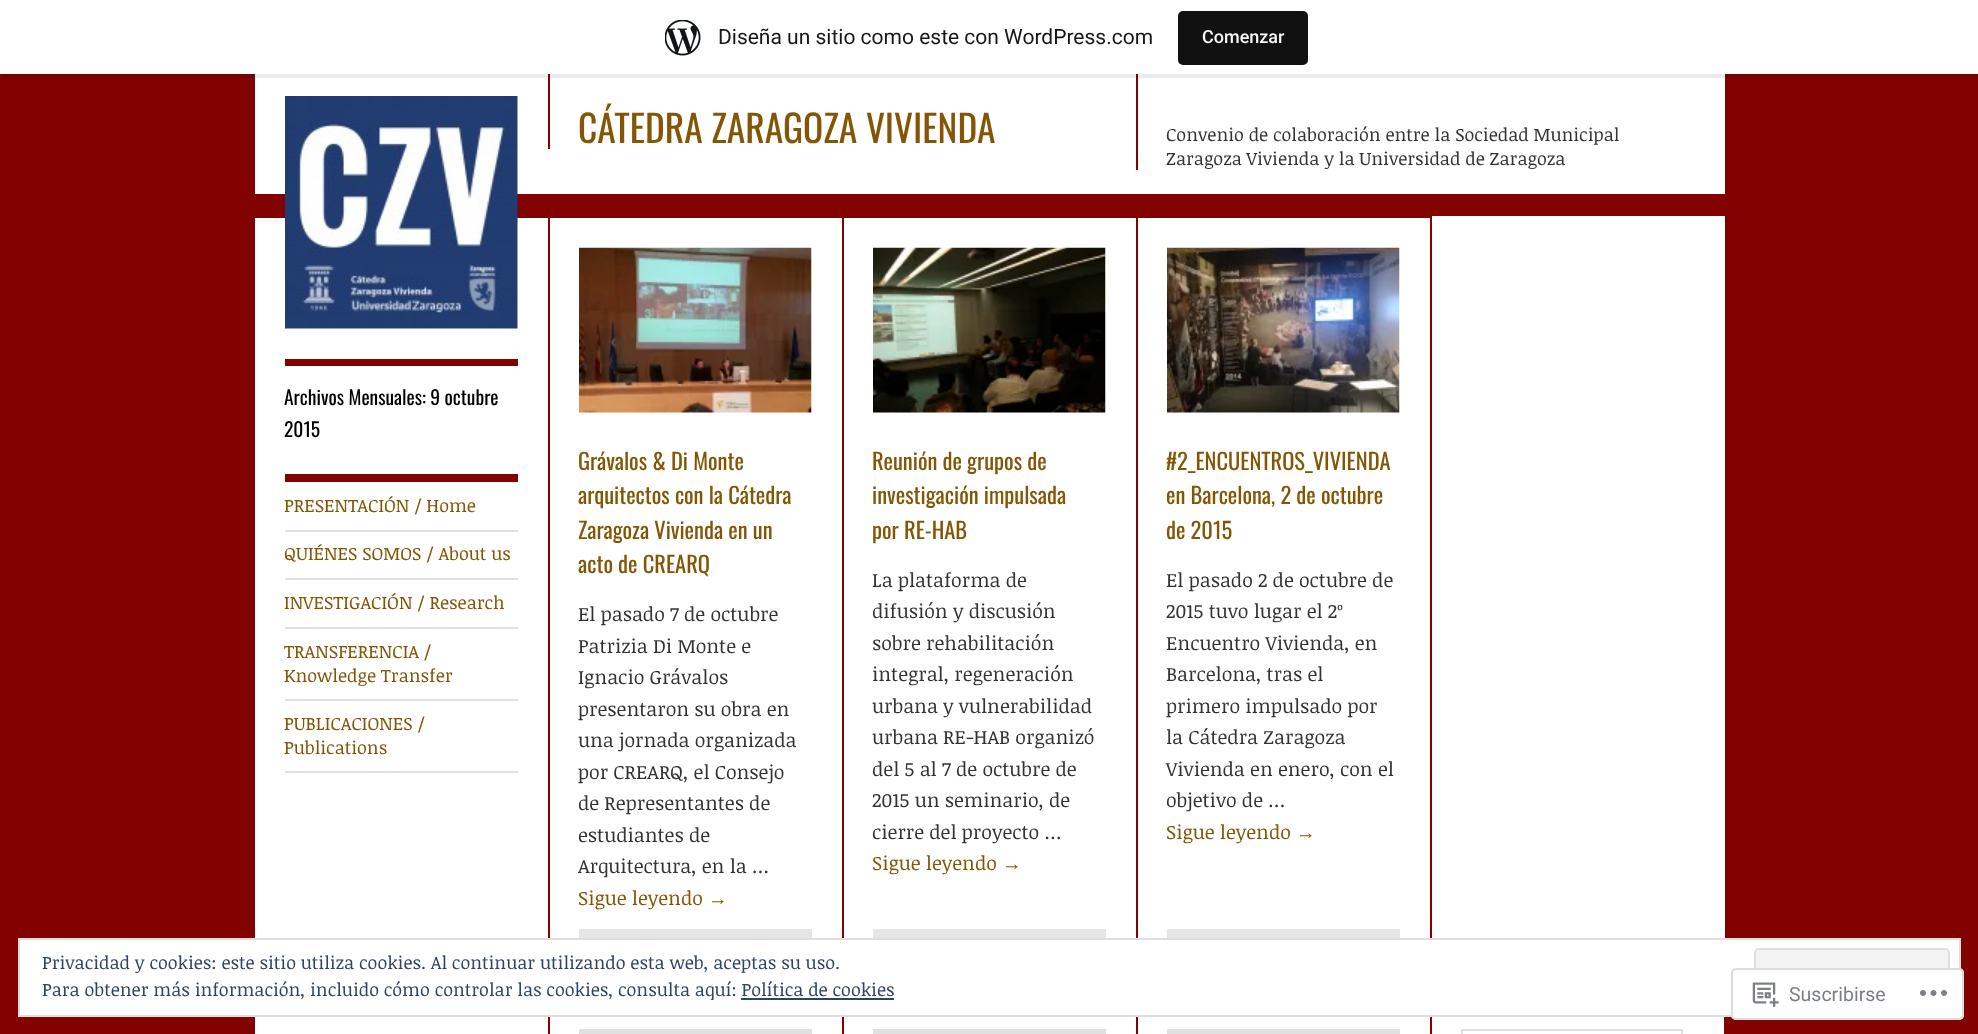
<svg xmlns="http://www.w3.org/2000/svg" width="1978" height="1034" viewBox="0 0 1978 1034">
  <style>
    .t1 { font: 21px Roboto; fill: #171717; }
    .t2 { font: 500 18px Roboto; fill: #f6f7f7; }
    .t3 { font: 37.5px Oswald; fill: #835504; }
    .t4 { font: 18px Noticia Text; fill: #333; }
    .t5 { font: 19.5px Oswald; fill: #000; }
    .t6 { font: 18px Noticia Text; fill: #835504; }
    .t7 { font: 22.5px Oswald; fill: #835504; }
    .t8 { font: 19.5px Noticia Text; fill: #333; }
    .t9 { font: 19.5px Noticia Text; fill: #835504; }
    .t10 { font: 19.5px Liberation Serif; fill: #835504; }
    .t11 { font: 18px Noticia Text; fill: #2e4467; }
    .t12 { font: 19.5px Roboto; fill: #7b7f84; }
  </style>
  <rect width="100%" height="100%" fill="#820101"/>
  <rect x="255" y="74" width="1470" height="120" fill="#fff"/>
  <rect x="548" y="74" width="2" height="75" fill="#820101"/>
  <rect x="1136" y="74" width="2" height="96" fill="#820101"/>
  <path d="M2 74V78H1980V5H1978V74Z" fill="#00000014"/>
  <rect x="0" y="0" width="1978" height="74" fill="#fff"/>
  <image x="665" y="20" width="36" height="36" href="images/1.png"/>
  <text x="718" y="44" class="t1">Diseña un sitio como este con WordPress.com</text>
  <rect x="1178" y="11" width="130" height="54" rx="5" fill="#111"/>
  <text x="1202" y="43" class="t2">Comenzar</text>
  <rect x="255" y="216" width="1470" height="818" fill="#fff"/>
  <rect x="255" y="216" width="294" height="2" fill="#820101"/>
  <image x="285" y="96" width="233" height="233" href="images/2.png"/>
  <text x="578" y="143" class="t3">CÁTEDRA ZARAGOZA VIVIENDA</text>
  <text x="1166" y="141" class="t4">Convenio de colaboración entre la Sociedad Municipal</text>
  <text x="1166" y="165" class="t4">Zaragoza Vivienda y la Universidad de Zaragoza</text>
  <rect x="548" y="216" width="2" height="722" fill="#820101"/>
  <rect x="285" y="359" width="233" height="7" fill="#820101"/>
  <text x="284" y="405" class="t5">Archivos Mensuales: 9 octubre</text>
  <text x="284" y="437" class="t5">2015</text>
  <rect x="285" y="474" width="233" height="8" fill="#820101"/>
  <rect x="285" y="530" width="233" height="2" fill="#e0e0e0"/>
  <text x="284" y="512" class="t6">PRESENTACIÓN / Home</text>
  <rect x="285" y="578" width="233" height="2" fill="#e0e0e0"/>
  <text x="284" y="560" class="t6">QUIÉNES SOMOS / About us</text>
  <rect x="285" y="627" width="233" height="2" fill="#e0e0e0"/>
  <text x="284" y="609" class="t6">INVESTIGACIÓN / Research</text>
  <rect x="285" y="699" width="233" height="2" fill="#e0e0e0"/>
  <text x="284" y="658" class="t6">TRANSFERENCIA /</text>
  <text x="284" y="682" class="t6">Knowledge Transfer</text>
  <rect x="285" y="771" width="233" height="2" fill="#e0e0e0"/>
  <text x="284" y="730" class="t6">PUBLICACIONES /</text>
  <text x="284" y="754" class="t6">Publications</text>
  <rect x="549" y="216" width="294" height="2" fill="#820101"/>
  <rect x="842" y="216" width="2" height="722" fill="#820101"/>
  <image x="579" y="247" width="233" height="166" href="images/3.png"/>
  <text x="578" y="470" class="t7">Grávalos &amp; Di Monte</text>
  <text x="578" y="504" class="t7">arquitectos con la Cátedra</text>
  <text x="578" y="539" class="t7">Zaragoza Vivienda en un</text>
  <text x="578" y="573" class="t7">acto de CREARQ</text>
  <text x="578" y="621" class="t8">El pasado 7 de octubre</text>
  <text x="578" y="653" class="t8">Patrizia Di Monte e</text>
  <text x="578" y="684" class="t8">Ignacio Grávalos</text>
  <text x="578" y="716" class="t8">presentaron su obra en</text>
  <text x="578" y="747" class="t8">una jornada organizada</text>
  <text x="578" y="779" class="t8">por CREARQ, el Consejo</text>
  <text x="578" y="810" class="t8">de Representantes de</text>
  <text x="578" y="842" class="t8">estudiantes de</text>
  <text x="578" y="873" class="t8">Arquitectura, en la …</text>
  <text x="578" y="905" class="t9">Sigue leyendo</text>
  <text x="708" y="905" class="t10">→</text>
  <rect x="579" y="929" width="233" height="9" fill="#e6e6e6"/>
  <rect x="843" y="216" width="294" height="2" fill="#820101"/>
  <rect x="1136" y="216" width="2" height="722" fill="#820101"/>
  <image x="873" y="247" width="233" height="166" href="images/4.png"/>
  <text x="872" y="470" class="t7">Reunión de grupos de</text>
  <text x="872" y="504" class="t7">investigación impulsada</text>
  <text x="872" y="539" class="t7">por RE-HAB</text>
  <text x="872" y="587" class="t8">La plataforma de</text>
  <text x="872" y="618" class="t8">difusión y discusión</text>
  <text x="872" y="650" class="t8">sobre rehabilitación</text>
  <text x="872" y="681" class="t8">integral, regeneración</text>
  <text x="872" y="713" class="t8">urbana y vulnerabilidad</text>
  <text x="872" y="744" class="t8">urbana RE-HAB organizó</text>
  <text x="872" y="776" class="t8">del 5 al 7 de octubre de</text>
  <text x="872" y="807" class="t8">2015 un seminario, de</text>
  <text x="872" y="839" class="t8">cierre del proyecto …</text>
  <text x="872" y="870" class="t9">Sigue leyendo</text>
  <text x="1002" y="870" class="t10">→</text>
  <rect x="873" y="929" width="233" height="9" fill="#e6e6e6"/>
  <rect x="1137" y="216" width="294" height="2" fill="#820101"/>
  <rect x="1430" y="216" width="2" height="722" fill="#820101"/>
  <image x="1167" y="247" width="233" height="166" href="images/5.png"/>
  <text x="1166" y="470" class="t7">#2_ENCUENTROS_VIVIENDA</text>
  <text x="1166" y="504" class="t7">en Barcelona, 2 de octubre</text>
  <text x="1166" y="539" class="t7">de 2015</text>
  <text x="1166" y="587" class="t8">El pasado 2 de octubre de</text>
  <text x="1166" y="618" class="t8">2015 tuvo lugar el 2º</text>
  <text x="1166" y="650" class="t8">Encuentro Vivienda, en</text>
  <text x="1166" y="681" class="t8">Barcelona, tras el</text>
  <text x="1166" y="713" class="t8">primero impulsado por</text>
  <text x="1166" y="744" class="t8">la Cátedra Zaragoza</text>
  <text x="1166" y="776" class="t8">Vivienda en enero, con el</text>
  <text x="1166" y="807" class="t8">objetivo de …</text>
  <text x="1166" y="839" class="t9">Sigue leyendo</text>
  <text x="1296" y="839" class="t10">→</text>
  <rect x="1167" y="929" width="233" height="9" fill="#e6e6e6"/>
  <rect x="548" y="1017" width="2" height="17" fill="#820101"/>
  <rect x="842" y="1017" width="2" height="17" fill="#820101"/>
  <rect x="579" y="1029" width="233" height="5" fill="#e0e0e0"/>
  <rect x="1136" y="1017" width="2" height="17" fill="#820101"/>
  <rect x="873" y="1029" width="233" height="5" fill="#e0e0e0"/>
  <rect x="1430" y="1017" width="2" height="17" fill="#820101"/>
  <rect x="1167" y="1029" width="233" height="5" fill="#e0e0e0"/>
  <rect x="1724" y="1017" width="1" height="17" fill="#820101"/>
  <rect x="1462" y="1030" width="220" height="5" fill="none" stroke="#e0e0e0" stroke-width="2"/>
  <rect x="19" y="939" width="1941" height="77" fill="#fff" stroke="#dedede" stroke-width="2"/>
  <text x="42" y="969" class="t11">Privacidad y cookies: este sitio utiliza cookies. Al continuar utilizando esta web, aceptas su uso.</text>
  <rect x="1755" y="949" width="194" height="57" rx="4" fill="#f3f3f3" stroke="#dedede" stroke-width="2"/>
  <text x="42" y="996" class="t11">Para obtener más información, incluido cómo controlar las cookies, consulta aquí: Política de cookies</text>
  <rect x="741" y="998" width="153" height="2" fill="#2e4467"/>
  <rect x="1731" y="968" width="233" height="52" rx="5" fill="#fffffffa"/>
  <rect x="1732" y="969" width="231" height="50" rx="4" fill="none" stroke="#dcdcdefa" stroke-width="2"/>
  <image x="1752" y="982" width="27" height="25" href="images/6.png"/>
  <text x="1789" y="1001" class="t12">Suscribirse</text>
  <image x="1920" y="990" width="27" height="6" href="images/7.png"/>
</svg>
